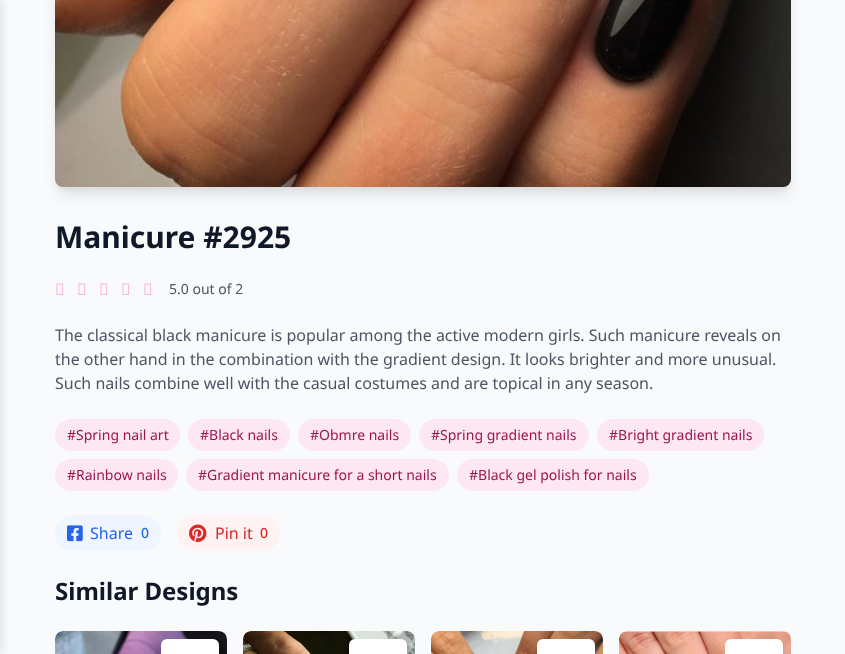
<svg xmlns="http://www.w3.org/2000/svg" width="845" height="654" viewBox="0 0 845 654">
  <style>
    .t1 { font: bold 30px Noto Sans; fill: #111827; }
    .t2 { font: 14px Noto Sans; fill: #4b5563; }
    .t3 { font: 16px Noto Sans; fill: #4b5563; }
    .t4 { font: 14px Noto Sans; fill: #9d174d; }
    .t5 { font: 16px Noto Sans; fill: #2563eb; }
    .t6 { font: 500 14px Noto Sans; fill: #2563eb; }
    .t7 { font: 16px Noto Sans; fill: #dc2626; }
    .t8 { font: 500 14px Noto Sans; fill: #dc2626; }
    .t9 { font: bold 24px Noto Sans; fill: #111827; }
  </style>
  <rect width="100%" height="100%" fill="#f9fafb"/>
  <rect x="-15" y="0" width="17" height="654" fill="#0000001a" filter="blur(5px)"/>
  <rect x="57" y="-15" width="732" height="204" rx="6" fill="#0000000d" filter="blur(3px)"/>
  <rect x="58" y="-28" width="730" height="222" rx="5" fill="#0000001a" filter="blur(7.5px)"/>
  <image x="55" y="0" width="736" height="187" href="images/1.png"/>
  <text x="55" y="248" class="t1">Manicure #2925</text>
  <image x="56" y="283" width="8" height="12" href="images/2.png"/>
  <image x="78" y="283" width="8" height="12" href="images/2.png"/>
  <image x="100" y="283" width="8" height="12" href="images/2.png"/>
  <image x="122" y="283" width="8" height="12" href="images/2.png"/>
  <image x="144" y="283" width="8" height="12" href="images/2.png"/>
  <text x="169" y="294" class="t2">5.0 out of 2</text>
  <text x="55" y="341" class="t3">The classical black manicure is popular among the active modern girls. Such manicure reveals on</text>
  <text x="55" y="365" class="t3">the other hand in the combination with the gradient design. It looks brighter and more unusual.</text>
  <text x="55" y="389" class="t3">Such nails combine well with the casual costumes and are topical in any season.</text>
  <rect x="55" y="419" width="125" height="32" rx="16" fill="#fce7f3"/>
  <text x="67" y="440" class="t4">#Spring nail art</text>
  <rect x="188" y="419" width="102" height="32" rx="16" fill="#fce7f3"/>
  <text x="200" y="440" class="t4">#Black nails</text>
  <rect x="298" y="419" width="113" height="32" rx="16" fill="#fce7f3"/>
  <text x="310" y="440" class="t4">#Obmre nails</text>
  <rect x="419" y="419" width="170" height="32" rx="16" fill="#fce7f3"/>
  <text x="431" y="440" class="t4">#Spring gradient nails</text>
  <rect x="597" y="419" width="167" height="32" rx="16" fill="#fce7f3"/>
  <text x="609" y="440" class="t4">#Bright gradient nails</text>
  <rect x="55" y="459" width="123" height="32" rx="16" fill="#fce7f3"/>
  <text x="67" y="480" class="t4">#Rainbow nails</text>
  <rect x="186" y="459" width="263" height="32" rx="16" fill="#fce7f3"/>
  <text x="198" y="480" class="t4">#Gradient manicure for a short nails</text>
  <rect x="457" y="459" width="192" height="32" rx="16" fill="#fce7f3"/>
  <text x="469" y="480" class="t4">#Black gel polish for nails</text>
  <rect x="55" y="515" width="106" height="36" rx="18" fill="#eff6ff"/>
  <image x="67" y="525" width="16" height="17" href="images/3.png"/>
  <text x="90" y="539" class="t5">Share</text>
  <text x="141" y="538" class="t6">0</text>
  <rect x="177" y="515" width="103" height="36" rx="18" fill="#fef2f2"/>
  <image x="189" y="524" width="18" height="18" href="images/4.png"/>
  <text x="215" y="539" class="t7">Pin it</text>
  <text x="260" y="538" class="t8">0</text>
  <text x="55" y="600" class="t9">Similar Designs</text>
  <image x="55" y="631" width="172" height="23" href="images/5.png"/>
  <rect x="162" y="644" width="56" height="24" rx="5" fill="#0000001a" filter="blur(3px)"/>
  <rect x="161" y="639" width="58" height="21" rx="6" fill="#fff"/>
  <image x="243" y="631" width="172" height="23" href="images/6.png"/>
  <rect x="350" y="644" width="56" height="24" rx="5" fill="#0000001a" filter="blur(3px)"/>
  <rect x="349" y="639" width="58" height="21" rx="6" fill="#fff"/>
  <image x="431" y="631" width="172" height="23" href="images/7.png"/>
  <rect x="538" y="644" width="56" height="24" rx="5" fill="#0000001a" filter="blur(3px)"/>
  <rect x="537" y="639" width="58" height="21" rx="6" fill="#fff"/>
  <image x="619" y="631" width="172" height="23" href="images/8.png"/>
  <rect x="726" y="644" width="56" height="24" rx="5" fill="#0000001a" filter="blur(3px)"/>
  <rect x="725" y="639" width="58" height="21" rx="6" fill="#fff"/>
</svg>
